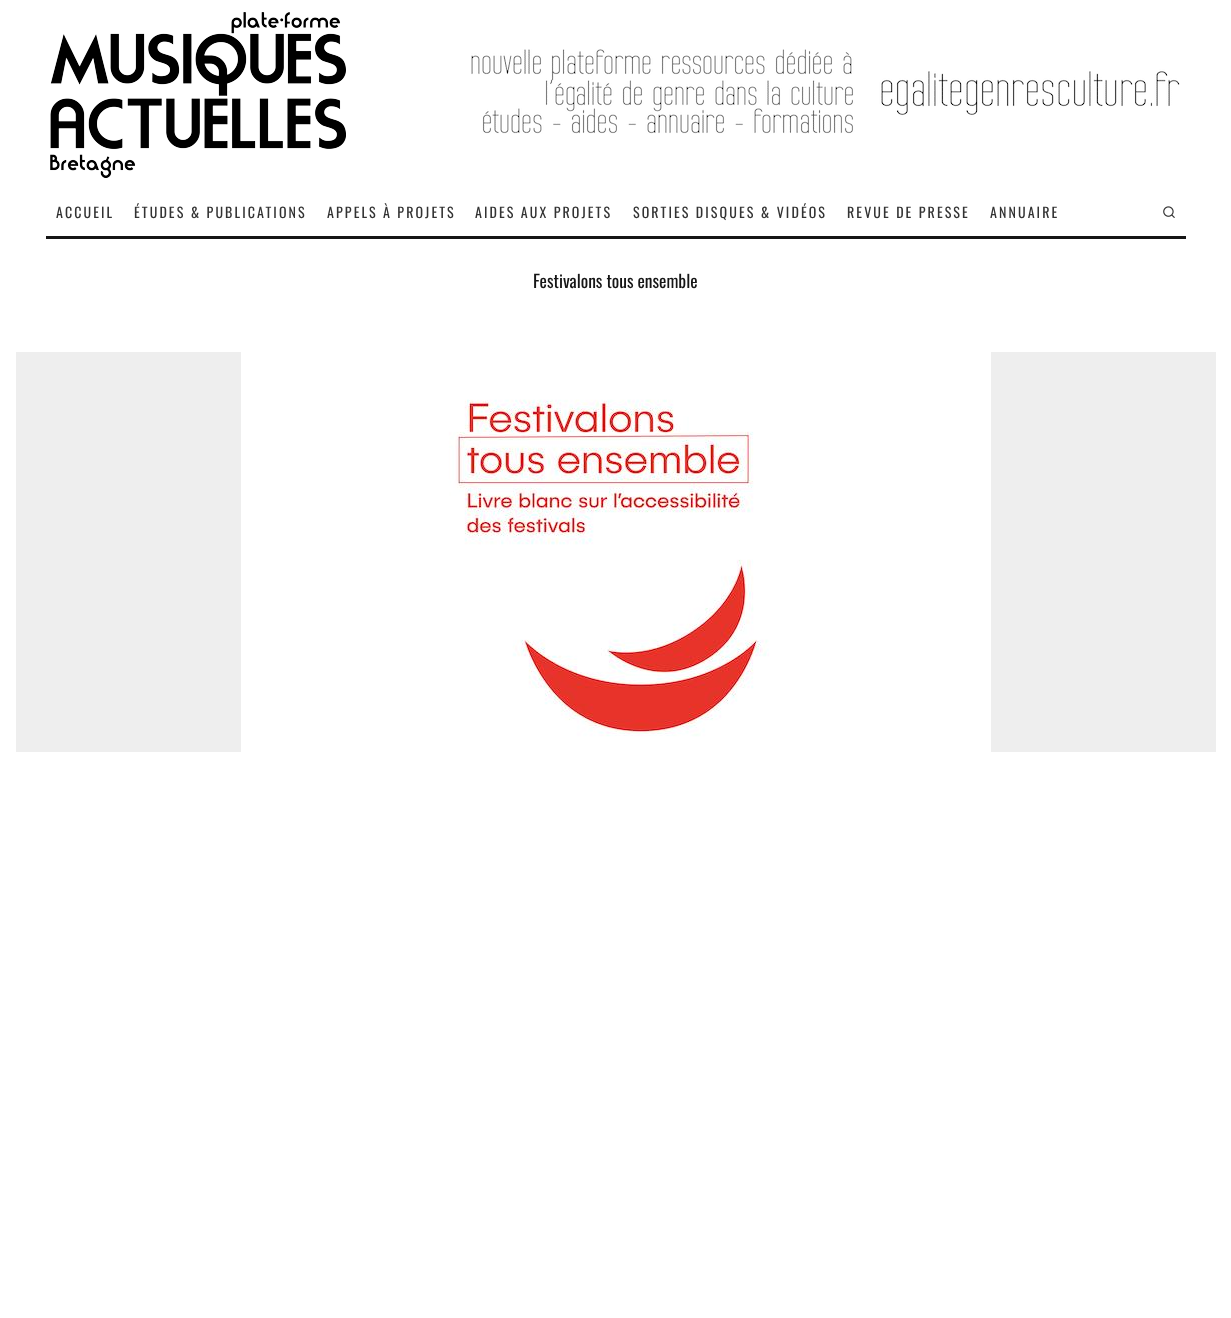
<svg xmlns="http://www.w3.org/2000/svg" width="1231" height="1318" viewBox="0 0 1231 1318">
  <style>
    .t1 { font: 14px Oswald; letter-spacing: 2.1px; fill: #333; }
    .t2 { font: 17.5px Oswald; fill: #161616; }
  </style>
  <rect width="100%" height="100%" fill="#fff"/>
  <image x="50" y="12" width="296" height="166" href="images/1.png"/>
  <image x="471" y="49" width="709" height="85" href="images/2.png"/>
  <rect x="46" y="236" width="1140" height="3" fill="#161616"/>
  <text x="56" y="218" class="t1">ACCUEIL</text>
  <text x="134" y="218" class="t1">ÉTUDES &amp; PUBLICATIONS</text>
  <text x="327" y="218" class="t1">APPELS À PROJETS</text>
  <text x="475" y="218" class="t1">AIDES AUX PROJETS</text>
  <text x="633" y="218" class="t1">SORTIES DISQUES &amp; VIDÉOS</text>
  <text x="847" y="218" class="t1">REVUE DE PRESSE</text>
  <text x="990" y="218" class="t1">ANNUAIRE</text>
  <image x="1163" y="206" width="12" height="12" href="images/3.png"/>
  <text x="533" y="288" class="t2">Festivalons tous ensemble</text>
  <rect x="16" y="352" width="1200" height="400" fill="#eee"/>
  <image x="241" y="352" width="750" height="400" href="images/4.png"/>
</svg>
